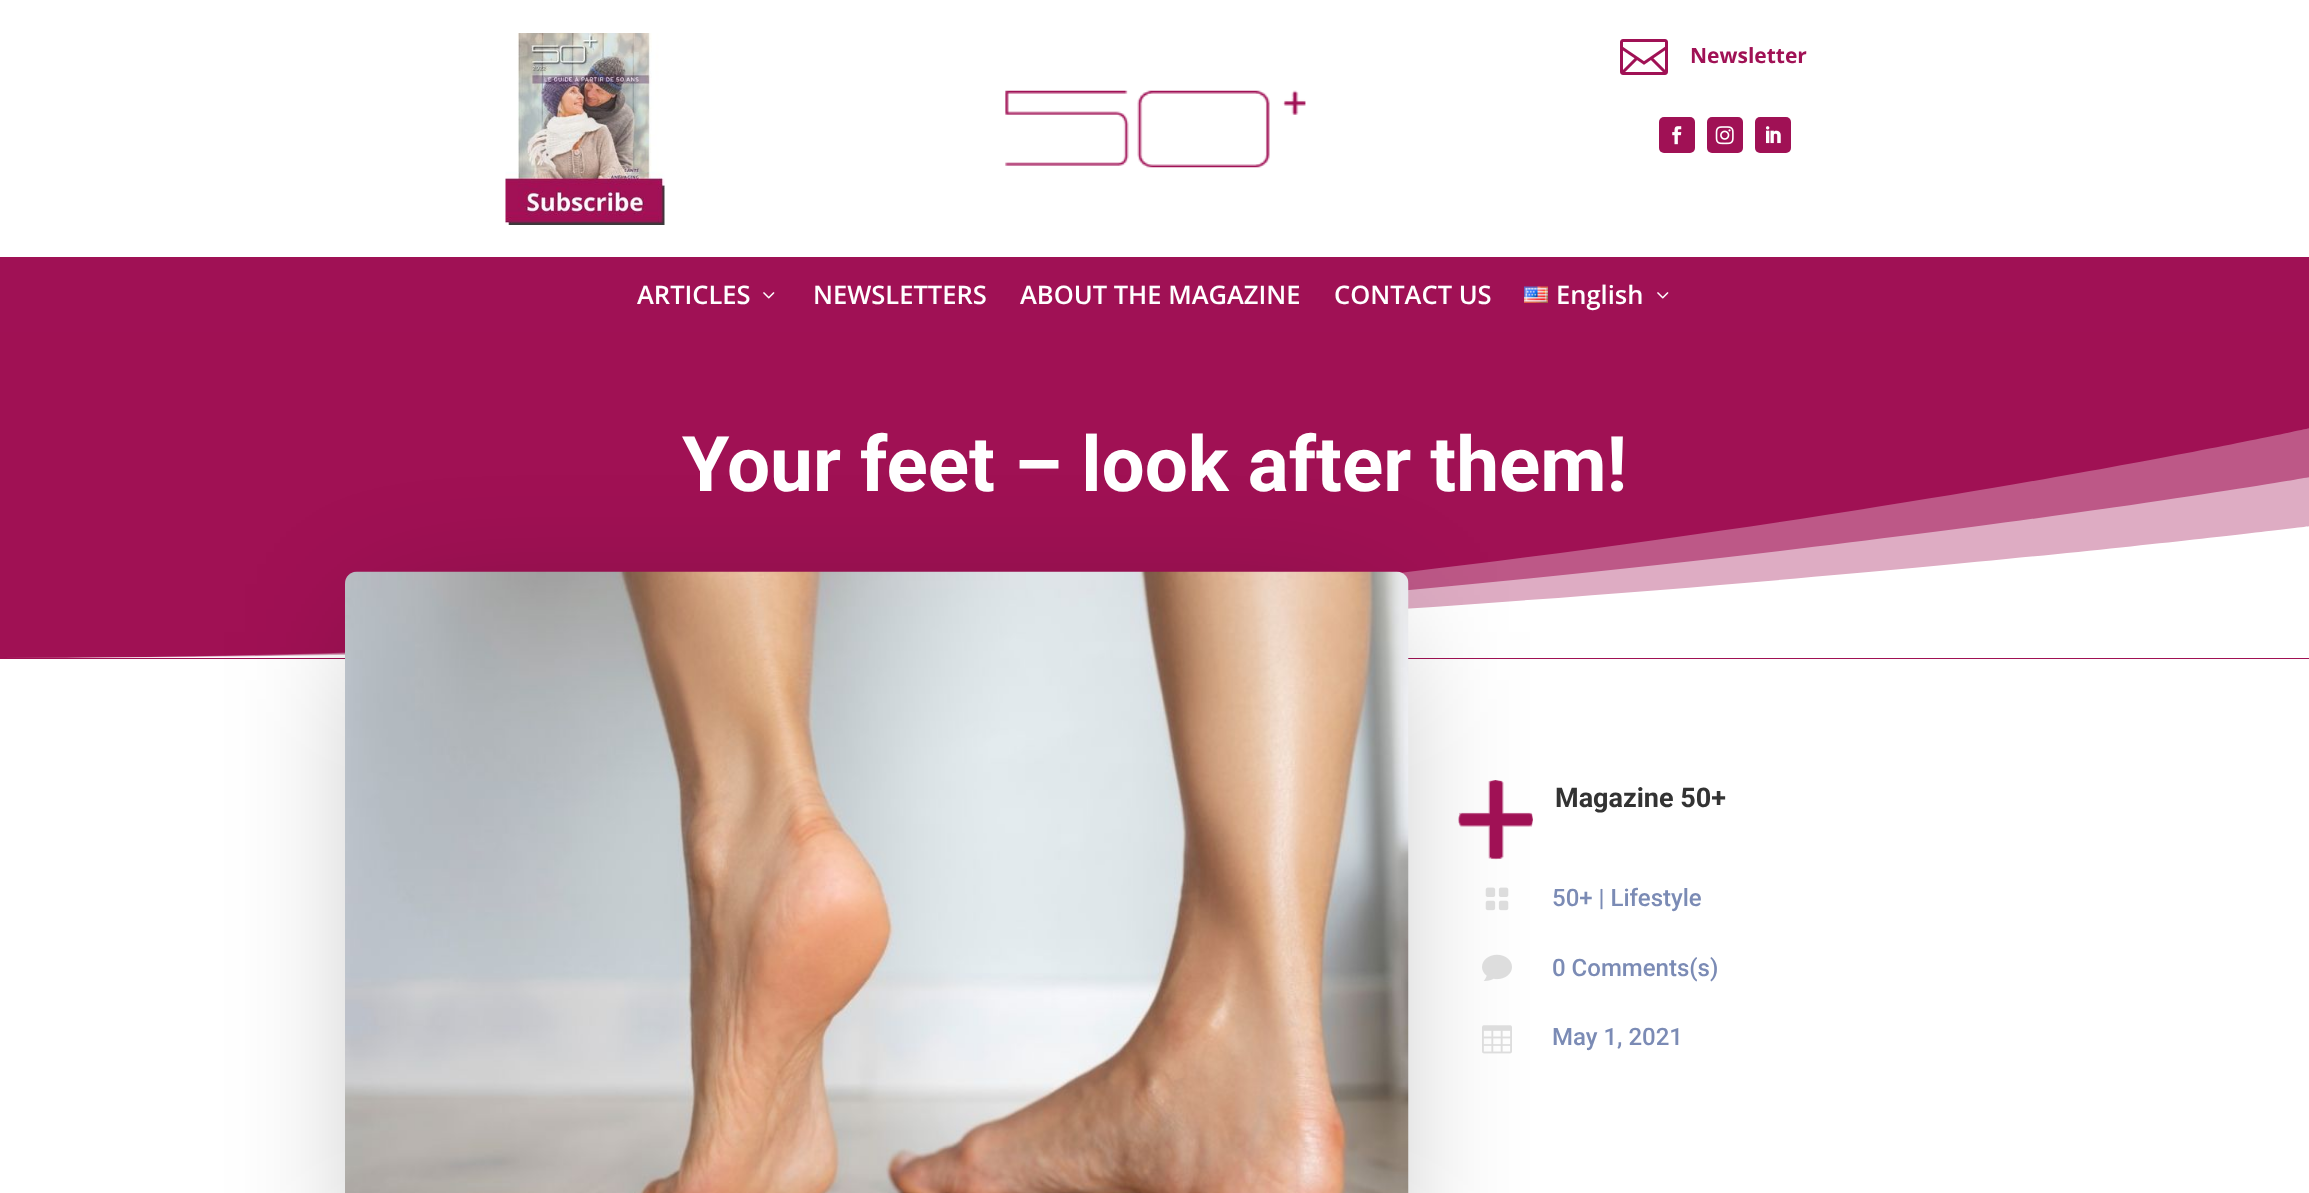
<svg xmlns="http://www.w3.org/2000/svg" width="2309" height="1193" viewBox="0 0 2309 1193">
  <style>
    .t1 { font: bold 21px Open Sans; fill: #a01155; }
    .t2 { font: 600 25.5px Open Sans; fill: #fff; }
    .t3 { font: bold 76.5px Roboto; fill: #fff; }
    .t4 { font: bold 27px Roboto; fill: #333; }
    .t5 { font: 500 24px Roboto; fill: #7b8bb5; }
  </style>
  <rect width="100%" height="100%" fill="#fff"/>
  <image x="505" y="33" width="160" height="192" href="images/1.png"/>
  <image x="1620" y="39" width="48" height="36" href="images/2.png"/>
  <text x="1690" y="63" class="t1">Newsletter</text>
  <rect x="1659" y="117" width="36" height="36" rx="5" fill="#a01155"/>
  <image x="1672" y="126" width="10" height="19" href="images/3.png"/>
  <rect x="1707" y="117" width="36" height="36" rx="5" fill="#a01155"/>
  <image x="1715" y="126" width="19" height="19" href="images/4.png"/>
  <rect x="1755" y="117" width="36" height="36" rx="5" fill="#a01155"/>
  <image x="1766" y="126" width="15" height="18" href="images/5.png"/>
  <image x="1005" y="90" width="301" height="78" href="images/6.png"/>
  <rect x="0" y="257" width="2309" height="75" fill="#a01155"/>
  <text x="637" y="304" class="t2">ARTICLES</text>
  <image x="763" y="292" width="12" height="7" href="images/7.png"/>
  <text x="813" y="304" class="t2">NEWSLETTERS</text>
  <text x="1020" y="304" class="t2">ABOUT THE MAGAZINE</text>
  <text x="1334" y="304" class="t2">CONTACT US</text>
  <image x="1524" y="286" width="24" height="17" href="images/8.png"/>
  <text x="1556" y="304" class="t2">English</text>
  <image x="1657" y="292" width="12" height="7" href="images/7.png"/>
  <rect x="0" y="332" width="2309" height="327" fill="#a01154"/>
  <path d="M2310 658H0C1276 658 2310 428 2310 428Z" fill="#bd5887"/>
  <path d="M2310 658H0C1276 658 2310 477 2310 477Z" fill="#ffffff80"/>
  <path d="M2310 658H0C1276 658 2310 526 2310 526Z" fill="#fff"/>
  <rect x="381" y="632" width="992" height="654" fill="#0000004d" filter="blur(72px)"/>
  <text x="682" y="491" class="t3">Your feet – look after them!</text>
  <image x="345" y="571" width="1064" height="622" href="images/9.png"/>
  <image x="1458" y="780" width="75" height="80" href="images/10.png"/>
  <text x="1555" y="807" class="t4">Magazine 50+</text>
  <image x="1485" y="887" width="24" height="24" href="images/11.png"/>
  <text x="1552" y="906" class="t5">50+ | Lifestyle</text>
  <image x="1482" y="954" width="30" height="27" href="images/12.png"/>
  <text x="1552" y="976" class="t5">0 Comments(s)</text>
  <image x="1482" y="1025" width="30" height="29" href="images/13.png"/>
  <text x="1552" y="1045" class="t5">May 1, 2021</text>
</svg>
